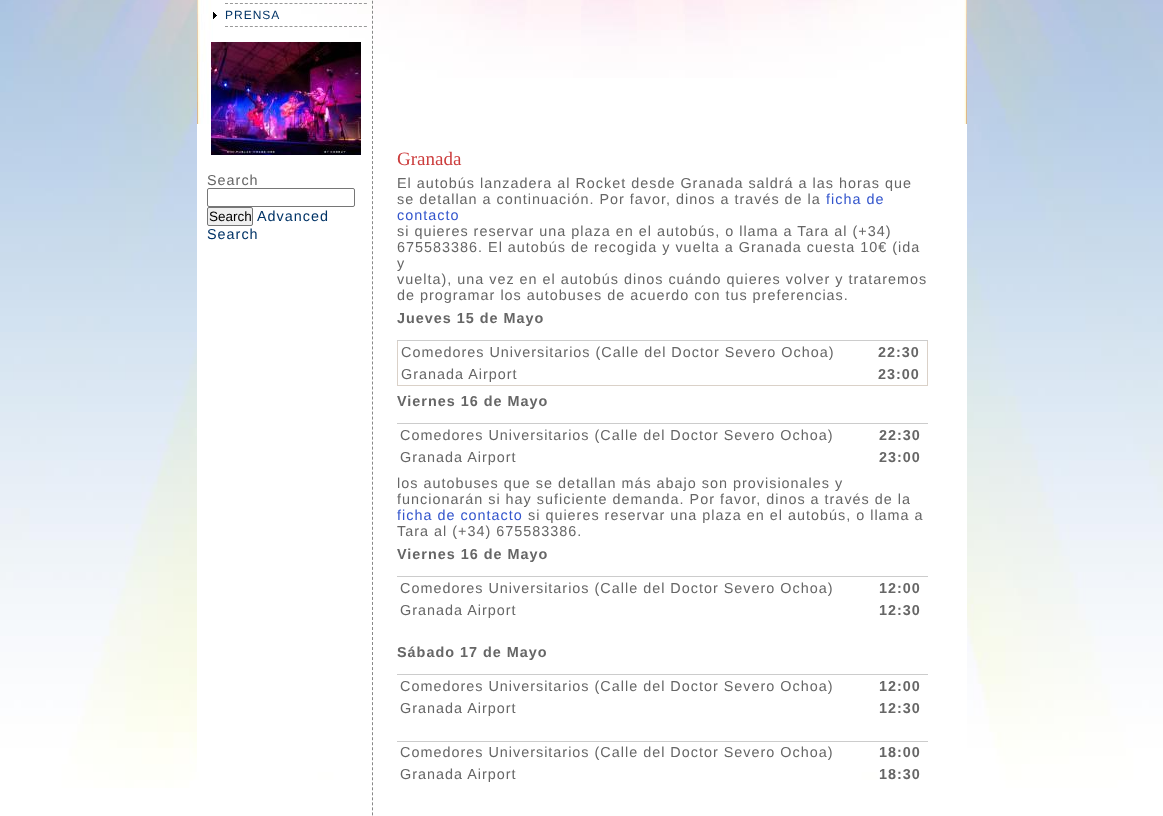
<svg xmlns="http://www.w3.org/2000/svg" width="1163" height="816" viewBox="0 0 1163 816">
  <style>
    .t1 { font: 12px Liberation Sans; letter-spacing: 1px; fill: #036; }
    .t2 { font: 14.4px Liberation Sans; letter-spacing: 1px; fill: #666; }
    .t3 { font: 13.5px Liberation Sans; fill: #000; }
    .t4 { font: 14.4px Liberation Sans; letter-spacing: 1px; fill: #036; }
    .t5 { font: 19px Liberation Serif; fill: #cc3d3d; }
    .t6 { font: 14.4px Liberation Sans; letter-spacing: 1px; fill: #35c; }
    .t7 { font: bold 14.4px Liberation Sans; letter-spacing: 1px; fill: #666; }
  </style>
  <rect width="100%" height="100%" fill="#fff"/>
  <image x="0" y="0" width="1163" height="788" href="images/1.png"/>
  <rect x="197" y="124" width="770" height="648" fill="#fff"/>
  <image x="197" y="0" width="770" height="124" href="images/2.png"/>
  <path d="M225 3.5H367" fill="none" stroke="#999" stroke-dasharray="3 1.96"/>
  <path d="M225 26.5H367" fill="none" stroke="#999" stroke-dasharray="3 1.96"/>
  <image x="213" y="12" width="4" height="7" href="images/3.png"/>
  <text x="225" y="19" class="t1">PRENSA</text>
  <image x="211" y="42" width="150" height="113" href="images/4.png"/>
  <text x="207" y="185" class="t2">Search</text>
  <rect x="207.5" y="188.5" width="147" height="18" rx="1.5" fill="none" stroke="#767676"/>
  <rect x="207.5" y="207.5" width="45" height="18" rx="1.5" fill="#efefef" stroke="#767676"/>
  <text x="209" y="221" class="t3">Search</text>
  <text x="257" y="221" class="t4">Advanced</text>
  <text x="207" y="239" class="t4">Search</text>
  <path d="M372.5-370V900" fill="none" stroke="#888" stroke-dasharray="3 2.01"/>
  <text x="397" y="165" class="t5">Granada</text>
  <text x="397" y="188" class="t2">El autobús lanzadera al Rocket desde Granada saldrá a las horas que</text>
  <text x="397" y="204" class="t2">se detallan a continuación. Por favor, dinos a través de la</text>
  <text x="826" y="204" class="t6">ficha de</text>
  <text x="397" y="220" class="t6">contacto</text>
  <text x="397" y="236" class="t2">si quieres reservar una plaza en el autobús, o llama a Tara al (+34)</text>
  <text x="397" y="252" class="t2">675583386. El autobús de recogida y vuelta a Granada cuesta 10€ (ida</text>
  <text x="397" y="268" class="t2">y</text>
  <text x="397" y="284" class="t2">vuelta), una vez en el autobús dinos cuándo quieres volver y trataremos</text>
  <text x="397" y="300" class="t2">de programar los autobuses de acuerdo con tus preferencias.</text>
  <text x="397" y="323" class="t7">Jueves 15 de Mayo</text>
  <rect x="927" y="340" width="1" height="46" fill="#dad1c8"/>
  <rect x="397" y="385" width="531" height="1" fill="#dad1c8"/>
  <rect x="397" y="340" width="1" height="46" fill="#dad1c8"/>
  <rect x="397" y="340" width="531" height="1" fill="#ccc"/>
  <text x="401" y="357" class="t2">Comedores Universitarios (Calle del Doctor Severo Ochoa)</text>
  <text x="878" y="357" class="t7">22:30</text>
  <text x="401" y="379" class="t2">Granada Airport</text>
  <text x="878" y="379" class="t7">23:00</text>
  <text x="397" y="406" class="t7">Viernes 16 de Mayo</text>
  <rect x="397" y="423" width="531" height="1" fill="#ccc"/>
  <text x="400" y="440" class="t2">Comedores Universitarios (Calle del Doctor Severo Ochoa)</text>
  <text x="879" y="440" class="t7">22:30</text>
  <text x="400" y="462" class="t2">Granada Airport</text>
  <text x="879" y="462" class="t7">23:00</text>
  <text x="397" y="488" class="t2">los autobuses que se detallan más abajo son provisionales y</text>
  <text x="397" y="504" class="t2">funcionarán si hay suficiente demanda. Por favor, dinos a través de la</text>
  <text x="397" y="520" class="t6">ficha de contacto</text>
  <text x="528" y="520" class="t2">si quieres reservar una plaza en el autobús, o llama a</text>
  <text x="397" y="536" class="t2">Tara al (+34) 675583386.</text>
  <text x="397" y="559" class="t7">Viernes 16 de Mayo</text>
  <rect x="397" y="576" width="531" height="1" fill="#ccc"/>
  <text x="400" y="593" class="t2">Comedores Universitarios (Calle del Doctor Severo Ochoa)</text>
  <text x="879" y="593" class="t7">12:00</text>
  <text x="400" y="615" class="t2">Granada Airport</text>
  <text x="879" y="615" class="t7">12:30</text>
  <text x="397" y="657" class="t7">Sábado 17 de Mayo</text>
  <rect x="397" y="674" width="531" height="1" fill="#ccc"/>
  <text x="400" y="691" class="t2">Comedores Universitarios (Calle del Doctor Severo Ochoa)</text>
  <text x="879" y="691" class="t7">12:00</text>
  <text x="400" y="713" class="t2">Granada Airport</text>
  <text x="879" y="713" class="t7">12:30</text>
  <rect x="397" y="741" width="531" height="1" fill="#ccc"/>
  <text x="400" y="757" class="t2">Comedores Universitarios (Calle del Doctor Severo Ochoa)</text>
  <text x="879" y="757" class="t7">18:00</text>
  <text x="400" y="779" class="t2">Granada Airport</text>
  <text x="879" y="779" class="t7">18:30</text>
</svg>
